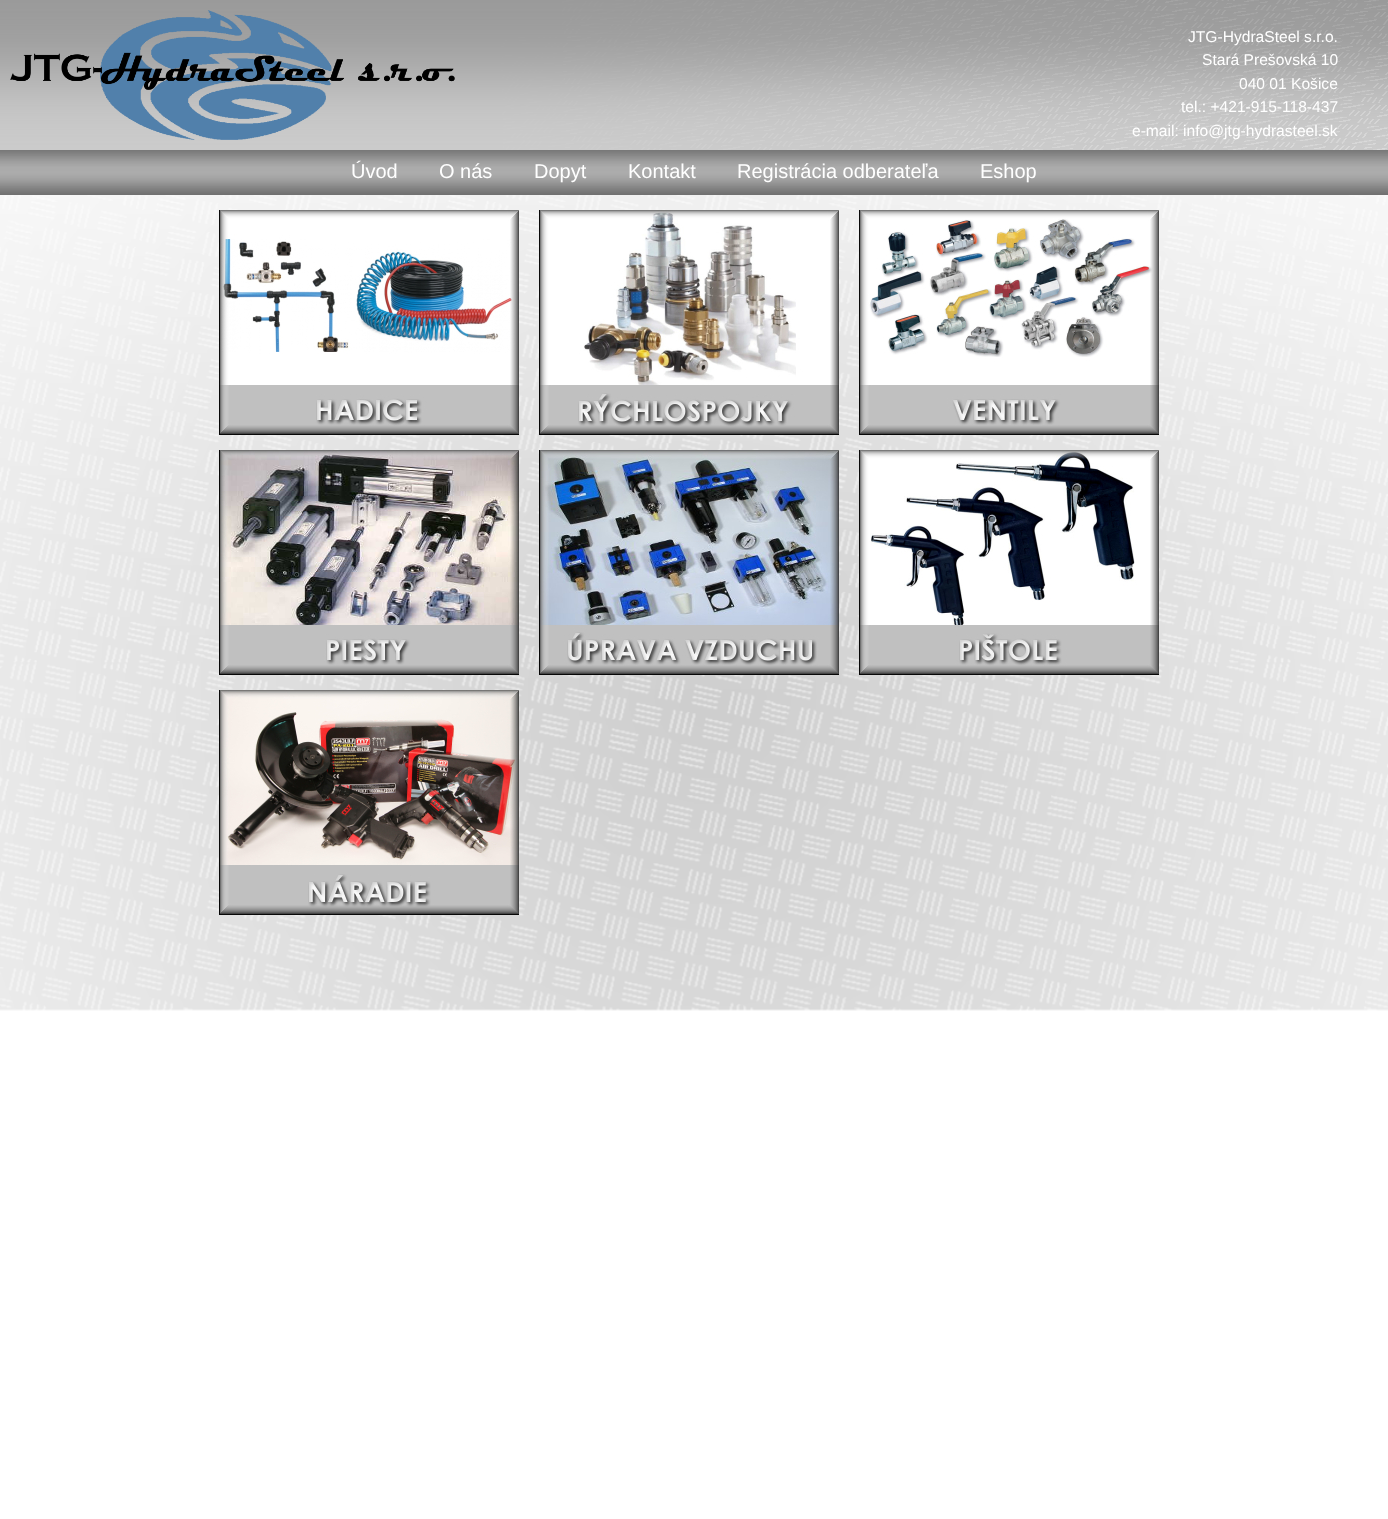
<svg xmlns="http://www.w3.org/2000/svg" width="1388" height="1519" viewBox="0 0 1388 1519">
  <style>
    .t1 { font: 15.6px Liberation Sans; fill: #fff; }
    .t2 { font: 20px Liberation Sans; fill: #fff; }
  </style>
  <rect width="100%" height="100%" fill="#fff"/>
  <image x="0" y="195" width="1388" height="816" href="images/1.png"/>
  <image x="0" y="0" width="1388" height="150" href="images/2.png"/>
  <image x="10" y="10" width="445" height="130" href="images/3.png"/>
  <text x="1188" y="42" class="t1">JTG-HydraSteel s.r.o.</text>
  <text x="1202" y="65" class="t1">Stará Prešovská 10</text>
  <text x="1239" y="89" class="t1">040 01 Košice</text>
  <text x="1181" y="112" class="t1">tel.: +421-915-118-437</text>
  <text x="1132" y="136" class="t1">e-mail: info@jtg-hydrasteel.sk</text>
  <image x="0" y="150" width="1388" height="45" href="images/4.png"/>
  <text x="351" y="178" class="t2">Úvod</text>
  <text x="439" y="178" class="t2">O nás</text>
  <text x="534" y="178" class="t2">Dopyt</text>
  <text x="628" y="178" class="t2">Kontakt</text>
  <text x="737" y="178" class="t2">Registrácia odberateľa</text>
  <text x="980" y="178" class="t2">Eshop</text>
  <image x="219" y="210" width="300" height="225" href="images/5.png"/>
  <image x="539" y="210" width="300" height="225" href="images/6.png"/>
  <image x="859" y="210" width="300" height="225" href="images/7.png"/>
  <image x="219" y="450" width="300" height="225" href="images/8.png"/>
  <image x="539" y="450" width="300" height="225" href="images/9.png"/>
  <image x="859" y="450" width="300" height="225" href="images/10.png"/>
  <image x="219" y="690" width="300" height="225" href="images/11.png"/>
</svg>
